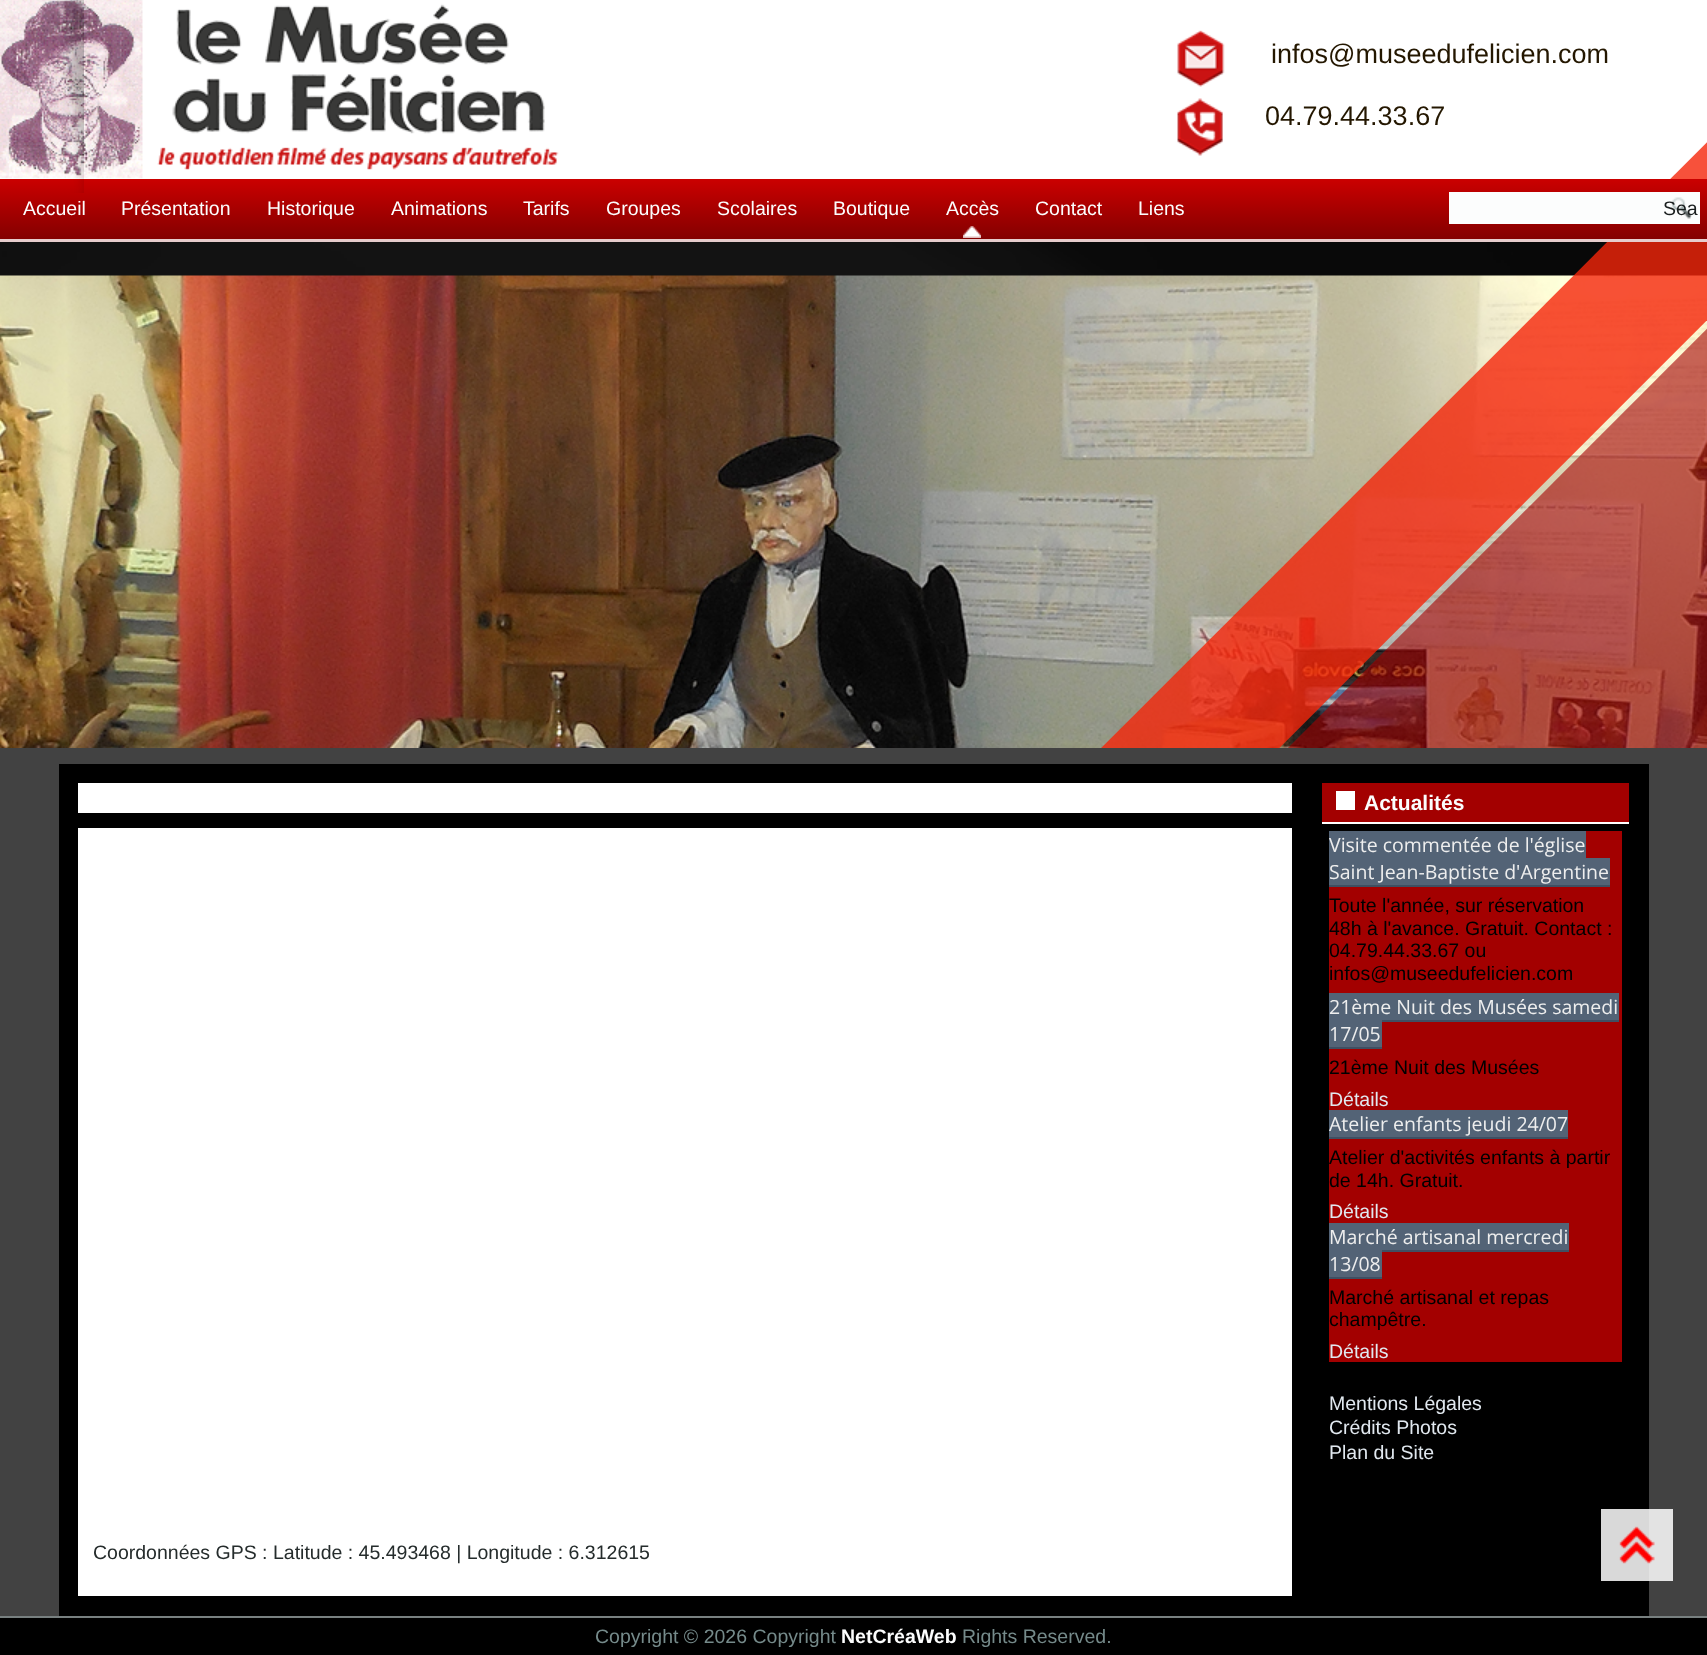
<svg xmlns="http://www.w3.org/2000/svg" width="1707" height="1655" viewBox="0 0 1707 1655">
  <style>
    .t1 { font: 27px Liberation Sans; fill: #241700; }
    .t2 { font: 19.5px Liberation Sans; fill: #fcfdfd; }
    .t3 { font: 19.5px Liberation Sans; fill: #1a1e1e; }
    .t4 { font: bold 21px Liberation Sans; fill: #fcfdfd; }
    .t5 { font: 19.5px Open Sans; fill: #eee; }
    .t6 { font: 19.5px Liberation Sans; fill: #000; }
    .t7 { font: 19.5px Liberation Sans; fill: #e1e8ef; }
    .t8 { font: 19.5px Liberation Sans; fill: #252c2c; }
    .t9 { font: 19.5px Liberation Sans; fill: #758a8a; }
    .t10 { font: bold 19.5px Liberation Sans; fill: #fcfdfd; }
  </style>
  <defs>
    <linearGradient id="g1" gradientUnits="userSpaceOnUse" x1="854" y1="178" x2="854" y2="242"><stop offset="0" stop-color="#c00"/><stop offset="1" stop-color="#800000"/></linearGradient>
  </defs>
  <rect width="100%" height="100%" fill="#424242"/>
  <rect x="1649" y="1509" width="24" height="72" fill="#e3e3e3"/>
  <image x="0" y="242" width="1707" height="34" href="images/1.png"/>
  <rect x="0" y="0" width="1707" height="179" fill="#fff"/>
  <image x="0" y="0" width="559" height="179" href="images/2.png"/>
  <image x="0" y="275" width="1707" height="473" href="images/7.png"/>
  <image x="1288" y="329" width="419" height="419" href="images/8.png"/>
  <image x="1101" y="142" width="606" height="606" href="images/6.png"/>
  <rect x="0" y="179" width="1707" height="60" fill="url(#g1)"/>
  <image x="57" y="0" width="27" height="193" href="images/3.png"/>
  <image x="1177" y="30" width="48" height="57" href="images/4.png"/>
  <image x="1177" y="98" width="46" height="58" href="images/5.png"/>
  <text x="1271" y="63" class="t1">infos@museedufelicien.com</text>
  <text x="1265" y="125" class="t1">04.79.44.33.67</text>
  <rect x="0" y="239" width="1707" height="3" fill="#e6cccc"/>
  <text x="23" y="215" class="t2">Accueil</text>
  <text x="121" y="215" class="t2">Présentation</text>
  <text x="267" y="215" class="t2">Historique</text>
  <text x="391" y="215" class="t2">Animations</text>
  <text x="523" y="215" class="t2">Tarifs</text>
  <text x="606" y="215" class="t2">Groupes</text>
  <text x="717" y="215" class="t2">Scolaires</text>
  <text x="833" y="215" class="t2">Boutique</text>
  <image x="963" y="226" width="18" height="12" href="images/9.png"/>
  <text x="946" y="215" class="t2">Accès</text>
  <text x="1035" y="215" class="t2">Contact</text>
  <text x="1138" y="215" class="t2">Liens</text>
  <rect x="1449" y="192" width="251" height="32" fill="#fcfdfd"/>
  <image x="1671" y="197" width="21" height="22" href="images/10.png"/>
  <text x="1663" y="215" class="t3">Sea</text>
  <rect x="59" y="764" width="1590" height="852" fill="#000"/>
  <rect x="1601" y="1509" width="48" height="72" fill="#d9d9d9"/>
  <rect x="1322" y="783" width="307" height="39" fill="#a30000"/>
  <rect x="1322" y="822" width="307" height="2" fill="#fff"/>
  <rect x="1336" y="791" width="19" height="19" fill="#fff"/>
  <text x="1364" y="810" class="t4">Actualités</text>
  <rect x="1329" y="831" width="293" height="531" fill="#a30000"/>
  <rect x="1329" y="831" width="257" height="27" fill="#536376"/>
  <text x="1329" y="852" class="t5">Visite commentée de l'église</text>
  <rect x="1329" y="858" width="281" height="27" fill="#536376"/>
  <text x="1329" y="879" class="t5">Saint Jean-Baptiste d'Argentine</text>
  <rect x="1329" y="885" width="281" height="2" fill="#3f4f62"/>
  <text x="1329" y="912" class="t6">Toute l'année, sur réservation</text>
  <text x="1329" y="935" class="t6">48h à l'avance. Gratuit. Contact :</text>
  <text x="1329" y="957" class="t6">04.79.44.33.67 ou</text>
  <text x="1329" y="980" class="t6">infos@museedufelicien.com</text>
  <rect x="1329" y="993" width="290" height="27" fill="#536376"/>
  <text x="1329" y="1014" class="t5">21ème Nuit des Musées samedi</text>
  <rect x="1382" y="1020" width="237" height="2" fill="#3f4f62"/>
  <rect x="1329" y="1020" width="53" height="27" fill="#536376"/>
  <text x="1329" y="1041" class="t5">17/05</text>
  <rect x="1329" y="1047" width="53" height="2" fill="#3f4f62"/>
  <text x="1329" y="1074" class="t6">21ème Nuit des Musées</text>
  <text x="1329" y="1106" class="t7">Détails</text>
  <rect x="1329" y="1110" width="239" height="27" fill="#536376"/>
  <text x="1329" y="1131" class="t5">Atelier enfants jeudi 24/07</text>
  <rect x="1329" y="1137" width="239" height="2" fill="#3f4f62"/>
  <text x="1329" y="1164" class="t6">Atelier d'activités enfants à partir</text>
  <text x="1329" y="1187" class="t6">de 14h. Gratuit.</text>
  <text x="1329" y="1218" class="t7">Détails</text>
  <rect x="1329" y="1223" width="240" height="27" fill="#536376"/>
  <text x="1329" y="1244" class="t5">Marché artisanal mercredi</text>
  <rect x="1382" y="1250" width="187" height="2" fill="#3f4f62"/>
  <rect x="1329" y="1250" width="53" height="27" fill="#536376"/>
  <text x="1329" y="1271" class="t5">13/08</text>
  <rect x="1329" y="1277" width="53" height="2" fill="#3f4f62"/>
  <text x="1329" y="1304" class="t6">Marché artisanal et repas</text>
  <text x="1329" y="1326" class="t6">champêtre.</text>
  <text x="1329" y="1358" class="t7">Détails</text>
  <text x="1329" y="1410" class="t7">Mentions Légales</text>
  <text x="1329" y="1434" class="t7">Crédits Photos</text>
  <text x="1329" y="1459" class="t7">Plan du Site</text>
  <rect x="78" y="783" width="1214" height="30" fill="#fff"/>
  <rect x="78" y="828" width="1214" height="768" fill="#fff"/>
  <text x="93" y="1559" class="t8">Coordonnées GPS : Latitude : 45.493468 | Longitude : 6.312615</text>
  <rect x="0" y="1618" width="1707" height="37" fill="#000"/>
  <rect x="0" y="1616" width="1707" height="2" fill="#788080"/>
  <text x="595" y="1643" class="t9">Copyright © 2026 Copyright</text>
  <text x="841" y="1643" class="t10">NetCréaWeb</text>
  <text x="962" y="1643" class="t9">Rights Reserved.</text>
  <image x="1619" y="1526" width="36" height="38" href="images/11.png"/>
</svg>
